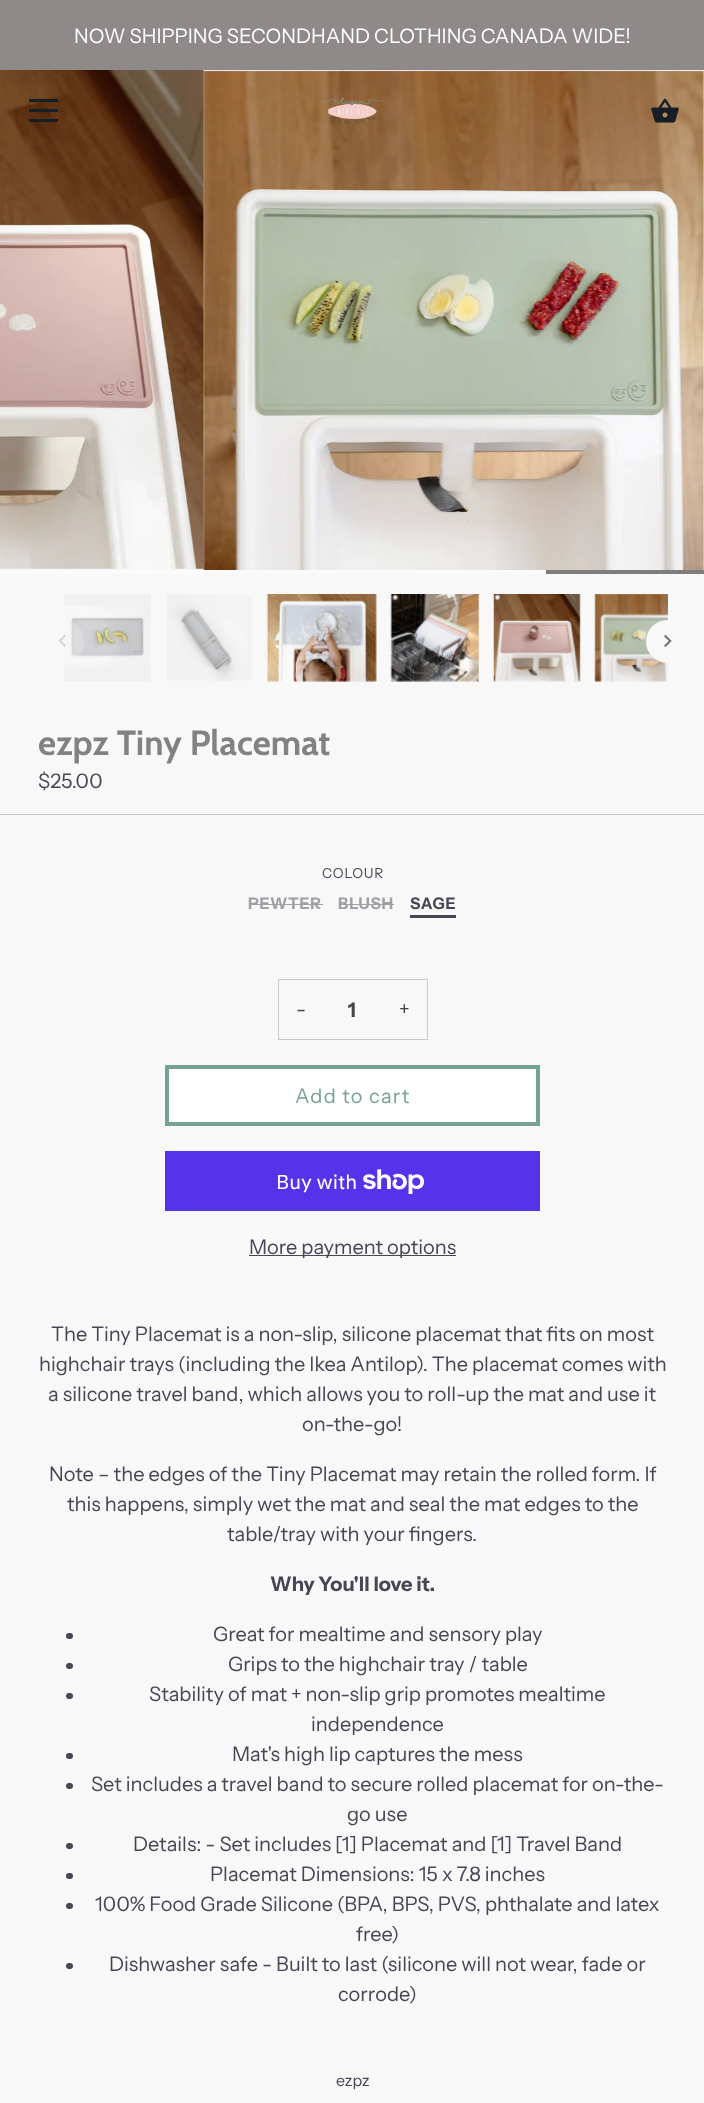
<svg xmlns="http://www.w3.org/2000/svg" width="704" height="2103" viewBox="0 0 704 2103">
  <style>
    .t1 { font: 20px Instrument Sans; fill: #fff; }
    .t2 { font: bold 35px Cabin; fill: #828282; }
    .t3 { font: 20px Instrument Sans; fill: #464654; }
    .t4 { font: 13.75px Instrument Sans; letter-spacing: 0.75px; fill: #464654; }
    .t5 { font: bold 16px Instrument Sans; letter-spacing: 0.75px; fill: #9f9fa6; }
    .t6 { font: bold 16px Instrument Sans; letter-spacing: 0.75px; fill: #464654; }
    .t7 { font: 20px Instrument Sans; fill: #444; }
    .t8 { font: bold 20px Instrument Sans; letter-spacing: 1px; fill: #444; }
    .t9 { font: 20px Instrument Sans; letter-spacing: 1.25px; fill: #74a294; }
    .t10 { font: 20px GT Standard; fill: #fff; }
    .t11 { font: bold 20px Instrument Sans; fill: #464654; }
    .t12 { font: 16px Instrument Sans; fill: #464654; }
  </style>
  <rect width="100%" height="100%" fill="#f8f8f8"/>
  <rect x="0" y="0" width="704" height="70" fill="#8e8a8a"/>
  <text x="74" y="43" class="t1">NOW SHIPPING SECONDHAND CLOTHING CANADA WIDE!</text>
  <image x="0" y="70" width="204" height="500" href="images/3.png"/>
  <rect x="29" y="99" width="29" height="3" fill="#161e26"/>
  <rect x="29" y="109" width="29" height="3" fill="#161e26"/>
  <rect x="29" y="119" width="29" height="3" fill="#161e26"/>
  <image x="203" y="70" width="501" height="500" href="images/4.png"/>
  <image x="322" y="97" width="61" height="27" href="images/1.png"/>
  <image x="651" y="98" width="28" height="25" href="images/2.png"/>
  <rect x="0" y="570" width="546" height="4" fill="#fbfbfb"/>
  <rect x="546" y="570" width="158" height="4" fill="#7e7e7e"/>
  <rect x="0" y="814" width="704" height="1" fill="#cbcbcf"/>
  <image x="64" y="594" width="87" height="87" href="images/6.png"/>
  <circle cx="62.5" cy="641.5" r="21.5" fill="#f8f8f840"/>
  <image x="58" y="634" width="8" height="13" href="images/5.png"/>
  <image x="167" y="594" width="85" height="87" href="images/7.png"/>
  <image x="266" y="594" width="111" height="88" href="images/8.png"/>
  <image x="390" y="594" width="89" height="88" href="images/9.png"/>
  <image x="493" y="594" width="88" height="88" href="images/10.png"/>
  <image x="594" y="594" width="74" height="88" href="images/11.png"/>
  <circle cx="667.5" cy="641.5" r="21.5" fill="#f8f8f8"/>
  <image x="664" y="634" width="8" height="14" href="images/12.png"/>
  <text x="38" y="755" class="t2">ezpz Tiny Placemat</text>
  <text x="38" y="788" class="t3">$25.00</text>
  <text x="322" y="878" class="t4">COLOUR</text>
  <text x="248" y="909" class="t5">PEWTER</text>
  <rect x="249" y="904" width="74" height="1" fill="#9f9fa6"/>
  <text x="338" y="909" class="t5">BLUSH</text>
  <rect x="339" y="904" width="55" height="1" fill="#9f9fa6"/>
  <rect x="410" y="915" width="46" height="3" fill="#464654"/>
  <text x="410" y="909" class="t6">SAGE</text>
  <rect x="278.5" y="979.5" width="149" height="60" fill="none" stroke="#cbcbcf"/>
  <text x="296" y="1016" class="t7">-</text>
  <text x="348" y="1017" class="t8">1</text>
  <text x="399" y="1016" class="t7">+</text>
  <rect x="167" y="1067" width="371" height="57" fill="#fff" stroke="#74a294" stroke-width="4"/>
  <text x="295" y="1103" class="t9">Add to cart</text>
  <rect x="165" y="1151" width="375" height="60" fill="#5433eb"/>
  <text x="276" y="1189" class="t10">Buy with</text>
  <image x="363" y="1169" width="62" height="25" href="images/13.png"/>
  <rect x="249" y="1255" width="207" height="1" fill="#464654"/>
  <text x="249" y="1254" class="t3">More payment options</text>
  <text x="51" y="1341" class="t3">The Tiny Placemat is a non-slip, silicone placemat that fits on most</text>
  <text x="39" y="1371" class="t3">highchair trays (including the Ikea Antilop). The placemat comes with</text>
  <text x="48" y="1401" class="t3">a silicone travel band, which allows you to roll-up the mat and use it</text>
  <text x="302" y="1431" class="t3">on-the-go!</text>
  <text x="49" y="1481" class="t3">Note – the edges of the Tiny Placemat may retain the rolled form. If</text>
  <text x="67" y="1511" class="t3">this happens, simply wet the mat and seal the mat edges to the</text>
  <text x="227" y="1541" class="t3">table/tray with your fingers.</text>
  <text x="270" y="1591" class="t11">Why You'll love it.</text>
  <rect x="66" y="1633" width="7" height="6" rx="3" fill="#464654"/>
  <text x="213" y="1641" class="t3">Great for mealtime and sensory play</text>
  <rect x="66" y="1663" width="7" height="6" rx="3" fill="#464654"/>
  <text x="228" y="1671" class="t3">Grips to the highchair tray / table</text>
  <rect x="66" y="1693" width="7" height="6" rx="3" fill="#464654"/>
  <text x="149" y="1701" class="t3">Stability of mat + non-slip grip promotes mealtime</text>
  <text x="311" y="1731" class="t3">independence</text>
  <rect x="66" y="1753" width="7" height="6" rx="3" fill="#464654"/>
  <text x="232" y="1761" class="t3">Mat's high lip captures the mess</text>
  <rect x="66" y="1783" width="7" height="6" rx="3" fill="#464654"/>
  <text x="91" y="1791" class="t3">Set includes a travel band to secure rolled placemat for on-the-</text>
  <text x="347" y="1821" class="t3">go use</text>
  <rect x="66" y="1843" width="7" height="6" rx="3" fill="#464654"/>
  <text x="133" y="1851" class="t3">Details: - Set includes [1] Placemat and [1] Travel Band</text>
  <rect x="66" y="1873" width="7" height="6" rx="3" fill="#464654"/>
  <text x="210" y="1881" class="t3">Placemat Dimensions: 15 x 7.8 inches</text>
  <rect x="66" y="1903" width="7" height="6" rx="3" fill="#464654"/>
  <text x="95" y="1911" class="t3">100% Food Grade Silicone (BPA, BPS, PVS, phthalate and latex</text>
  <text x="356" y="1941" class="t3">free)</text>
  <rect x="66" y="1963" width="7" height="6" rx="3" fill="#464654"/>
  <text x="109" y="1971" class="t3">Dishwasher safe - Built to last (silicone will not wear, fade or</text>
  <text x="338" y="2001" class="t3">corrode)</text>
  <text x="336" y="2086" class="t12">ezpz</text>
</svg>
